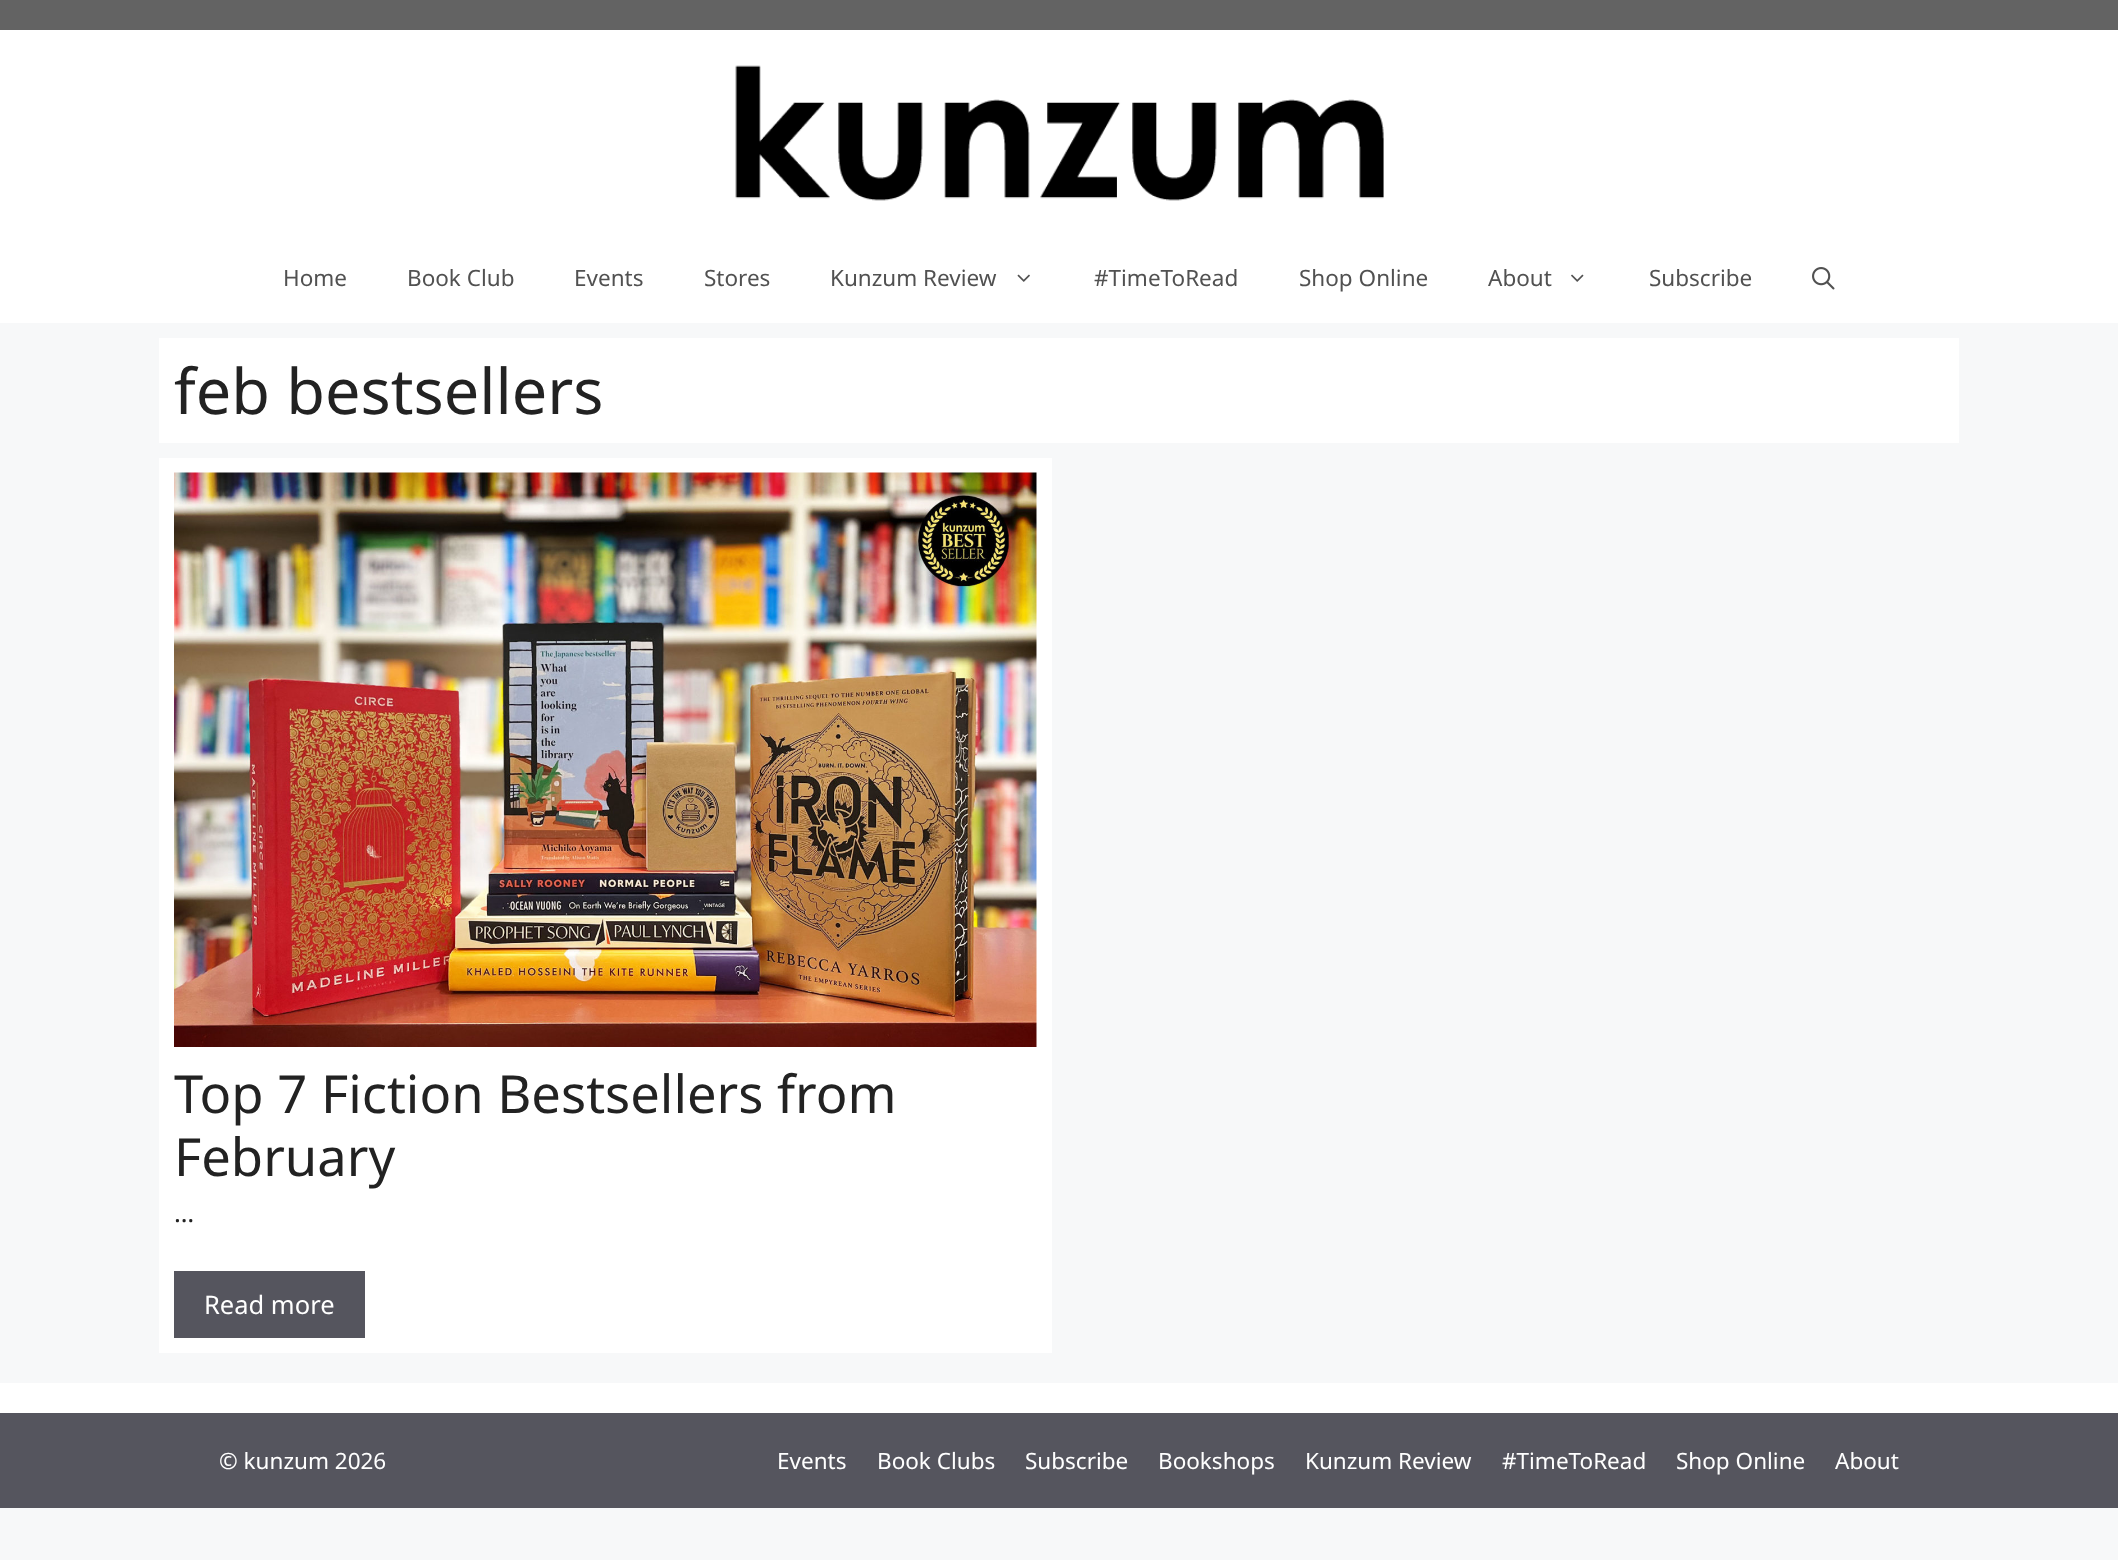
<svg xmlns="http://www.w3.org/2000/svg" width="2118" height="1560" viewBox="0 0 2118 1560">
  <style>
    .t1 { font: 22.5px Noto Sans; fill: #515151; }
    .t2 { font: 63px Noto Sans; fill: #222; }
    .t3 { font: 52.5px Noto Sans; fill: #222; }
    .t4 { font: 25.5px Noto Sans; fill: #222; }
    .t5 { font: 25.5px Noto Sans; fill: #fff; }
    .t6 { font: 22.5px Noto Sans; fill: #fff; }
  </style>
  <rect width="100%" height="100%" fill="#f7f8f9"/>
  <rect x="0" y="0" width="2118" height="30" fill="#636363"/>
  <rect x="0" y="30" width="2118" height="293" fill="#fff"/>
  <image x="735" y="65" width="649" height="136" href="images/1.png"/>
  <text x="283" y="286" class="t1">Home</text>
  <text x="407" y="286" class="t1">Book Club</text>
  <text x="574" y="286" class="t1">Events</text>
  <text x="704" y="286" class="t1">Stores</text>
  <text x="830" y="286" class="t1">Kunzum Review</text>
  <image x="1017" y="274" width="13" height="8" href="images/2.png"/>
  <text x="1094" y="286" class="t1">#TimeToRead</text>
  <text x="1299" y="286" class="t1">Shop Online</text>
  <text x="1488" y="286" class="t1">About</text>
  <image x="1571" y="274" width="13" height="8" href="images/3.png"/>
  <text x="1649" y="286" class="t1">Subscribe</text>
  <image x="1812" y="267" width="23" height="23" href="images/4.png"/>
  <rect x="159" y="338" width="1800" height="105" fill="#fff"/>
  <text x="174" y="414" class="t2">feb bestsellers</text>
  <rect x="159" y="458" width="893" height="895" fill="#fff"/>
  <image x="174" y="472" width="863" height="575" href="images/5.png"/>
  <text x="174" y="1113" class="t3">Top 7 Fiction Bestsellers from</text>
  <text x="174" y="1176" class="t3">February</text>
  <text x="174" y="1222" class="t4">…</text>
  <rect x="174" y="1271" width="191" height="67" fill="#55555e"/>
  <text x="204" y="1314" class="t5">Read more</text>
  <rect x="0" y="1383" width="2118" height="30" fill="#fff"/>
  <rect x="0" y="1413" width="2118" height="95" fill="#55555e"/>
  <text x="219" y="1469" class="t6">© kunzum 2026</text>
  <text x="777" y="1469" class="t6">Events</text>
  <text x="877" y="1469" class="t6">Book Clubs</text>
  <text x="1025" y="1469" class="t6">Subscribe</text>
  <text x="1158" y="1469" class="t6">Bookshops</text>
  <text x="1305" y="1469" class="t6">Kunzum Review</text>
  <text x="1502" y="1469" class="t6">#TimeToRead</text>
  <text x="1676" y="1469" class="t6">Shop Online</text>
  <text x="1835" y="1469" class="t6">About</text>
</svg>
